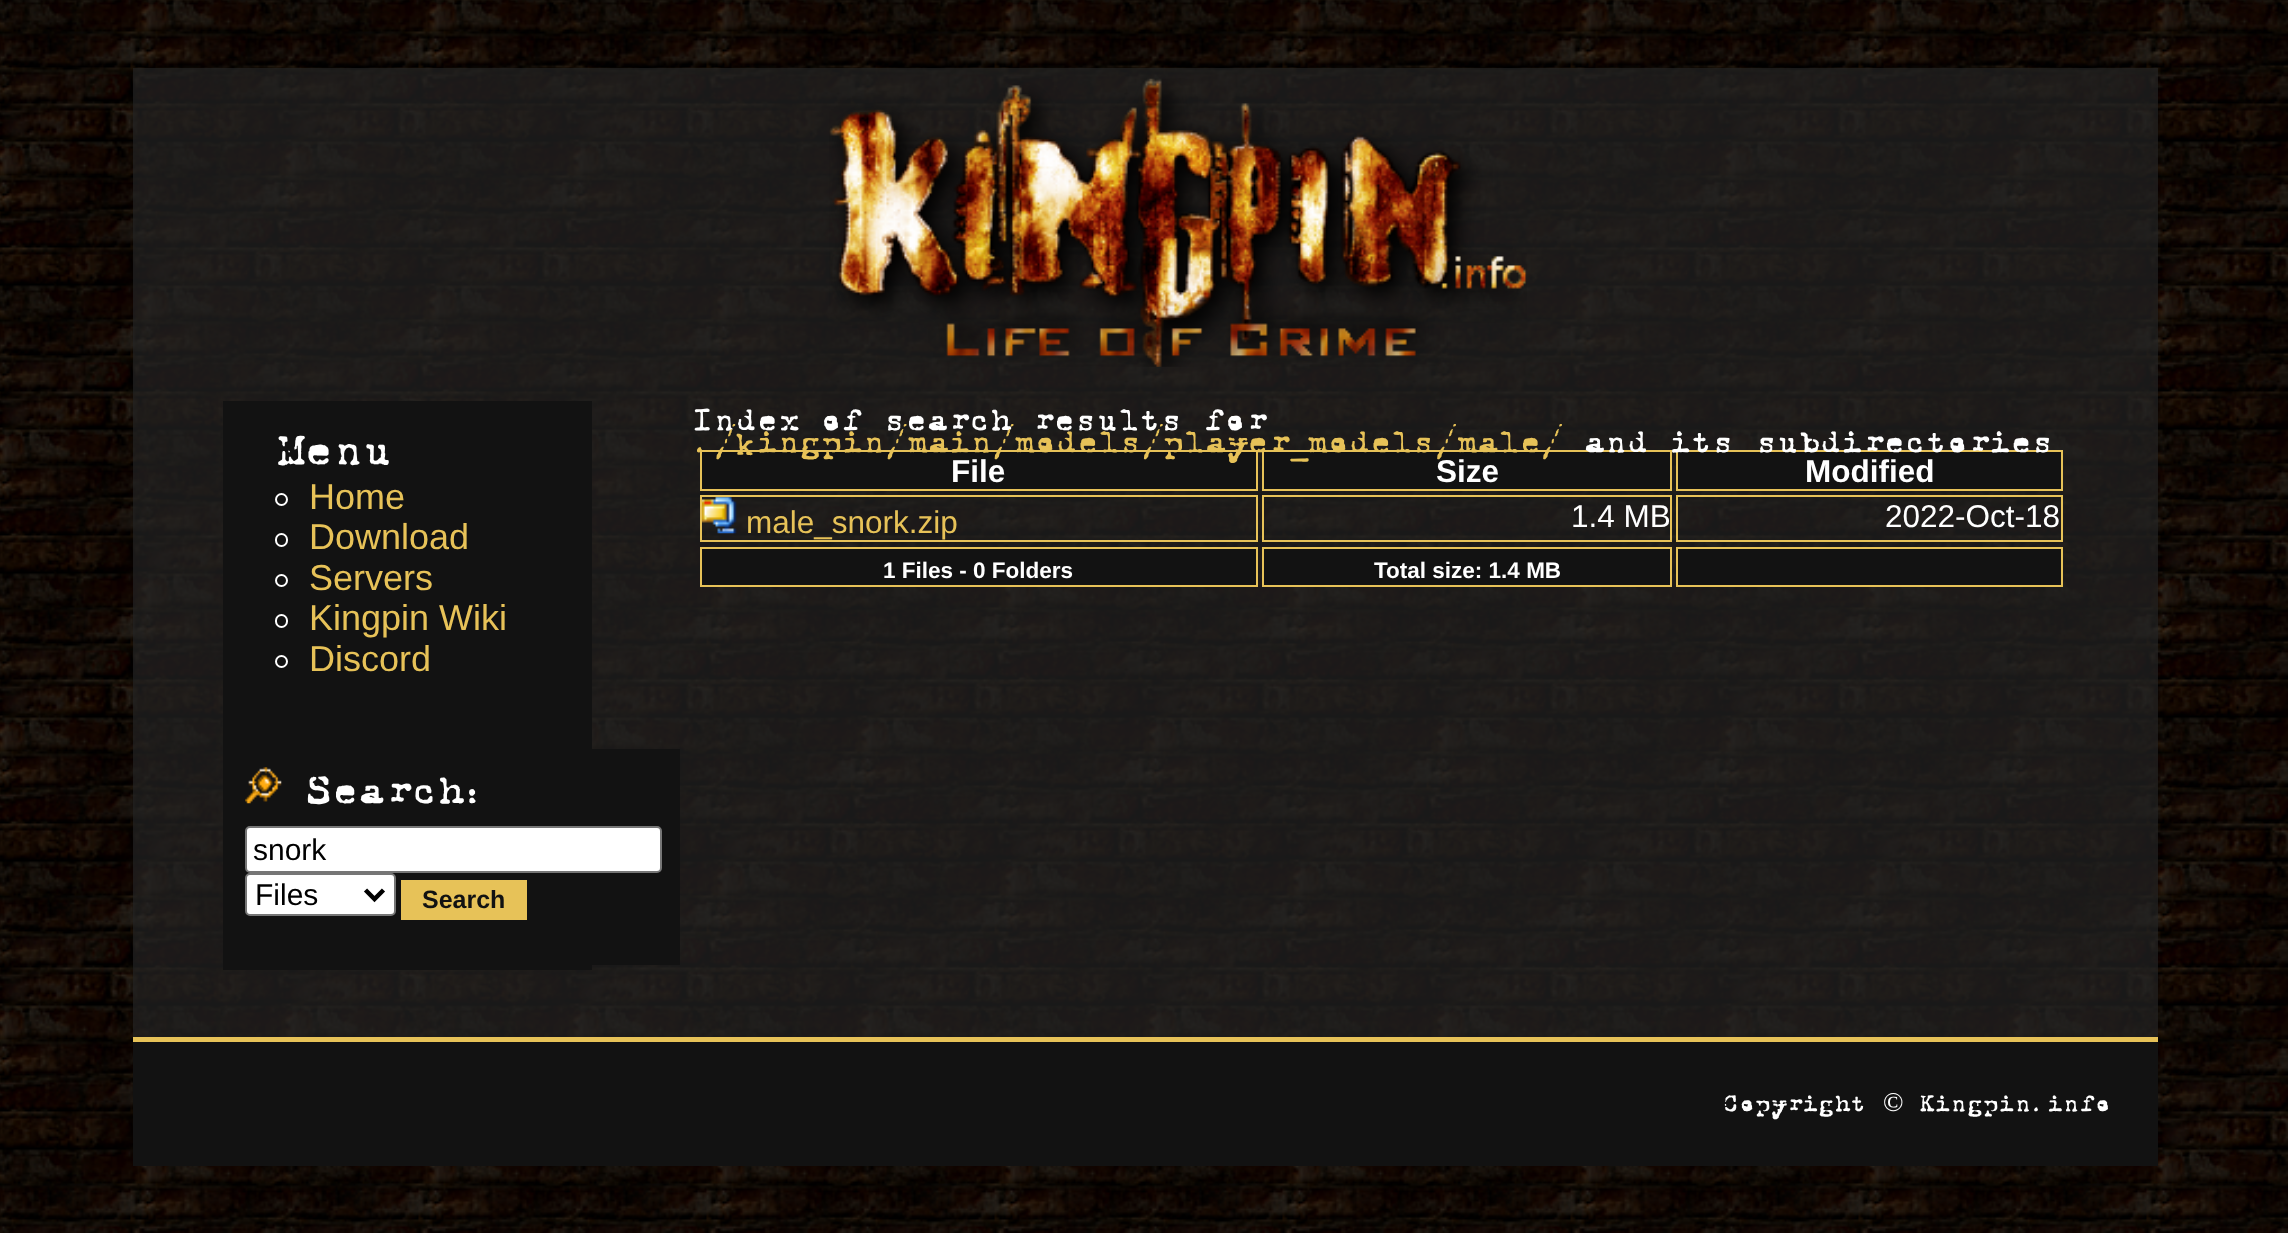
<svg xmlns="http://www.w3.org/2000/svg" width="2288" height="1233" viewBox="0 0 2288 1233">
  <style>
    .t1 { font: 49.5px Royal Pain; fill: #fff; }
    .t2 { font: 36px Liberation Sans; fill: #e7c258; }
    .t3 { font: 45px Royal Pain; fill: #fff; }
    .t4 { font: 30px Liberation Sans; fill: #000; }
    .t5 { font: bold 25px Liberation Sans; fill: #121212; }
    .t6 { font: 36px Royal Pain; fill: #fff; }
    .t7 { font: 36px Royal Pain; fill: #e7c258; }
    .t8 { font: bold 31.5px Liberation Sans; fill: #fff; }
    .t9 { font: 31.5px Liberation Sans; fill: #e7c258; }
    .t10 { font: 31.5px Liberation Sans; fill: #fff; }
    .t11 { font: bold 22.5px Liberation Sans; fill: #fff; }
    .t12 { font: 27px Royal Pain; fill: #fff; }
    .t13 { font: 27px Liberation Serif; fill: #fff; }
  </style>
  <rect width="100%" height="100%" fill="#fff"/>
  <image x="0" y="0" width="2288" height="1233" href="images/1.png"/>
  <rect x="133" y="68" width="2025" height="969" fill="#232323b3"/>
  <image x="829" y="78" width="698" height="289" href="images/2.png"/>
  <rect x="223" y="401" width="369" height="569" fill="#121212"/>
  <text x="278" y="464" class="t1">Menu</text>
  <circle cx="281.5" cy="499.5" r="5.5" fill="none" stroke="#fff" stroke-width="2"/>
  <text x="309" y="509" class="t2">Home</text>
  <rect x="276" y="534" width="11" height="12" rx="5.5" fill="none" stroke="#fff" stroke-width="2"/>
  <text x="309" y="549" class="t2">Download</text>
  <circle cx="281.5" cy="580.5" r="5.5" fill="none" stroke="#fff" stroke-width="2"/>
  <text x="309" y="590" class="t2">Servers</text>
  <rect x="276" y="615" width="11" height="12" rx="5.5" fill="none" stroke="#fff" stroke-width="2"/>
  <text x="309" y="630" class="t2">Kingpin Wiki</text>
  <circle cx="281.5" cy="661.5" r="5.5" fill="none" stroke="#fff" stroke-width="2"/>
  <text x="309" y="671" class="t2">Discord</text>
  <rect x="592" y="749" width="88" height="216" fill="#121212"/>
  <image x="245" y="767" width="37" height="37" href="images/3.png"/>
  <text x="307" y="803" class="t3">Search:</text>
  <rect x="246" y="827" width="415" height="45" rx="4" fill="#fff" stroke="#767676" stroke-width="2"/>
  <text x="253" y="860" class="t4">snork</text>
  <rect x="246" y="874" width="149" height="41" rx="4" fill="#fff" stroke="#767676" stroke-width="2"/>
  <path d="M365.5 890L374.5 899L383.5 890" fill="none" stroke="#000" stroke-width="4.5"/>
  <text x="255" y="905" class="t4">Files</text>
  <rect x="401" y="880" width="126" height="40" fill="#e7c258"/>
  <text x="422" y="908" class="t5">Search</text>
  <text x="694" y="430" class="t6">Index of search results for</text>
  <rect x="701" y="451" width="556" height="39" fill="#121212" stroke="#e7c258" stroke-width="2"/>
  <rect x="1263" y="451" width="408" height="39" fill="#121212" stroke="#e7c258" stroke-width="2"/>
  <text x="694" y="452" class="t7">./kingpin/main/models/player_models/male/</text>
  <rect x="1677" y="451" width="385" height="39" fill="#121212" stroke="#e7c258" stroke-width="2"/>
  <text x="1585" y="452" class="t6">and its subdirectories</text>
  <text x="951" y="482" class="t8">File</text>
  <text x="1436" y="482" class="t8">Size</text>
  <text x="1805" y="482" class="t8">Modified</text>
  <rect x="701" y="496" width="556" height="45" fill="none" stroke="#e7c258" stroke-width="2"/>
  <image x="702" y="497" width="35" height="37" href="images/4.png"/>
  <text x="746" y="533" class="t9">male_snork.zip</text>
  <rect x="1263" y="496" width="408" height="45" fill="none" stroke="#e7c258" stroke-width="2"/>
  <text x="1571" y="527" class="t10">1.4 MB</text>
  <rect x="1677" y="496" width="385" height="45" fill="none" stroke="#e7c258" stroke-width="2"/>
  <text x="1885" y="527" class="t10">2022-Oct-18</text>
  <rect x="701" y="548" width="556" height="38" fill="#121212" stroke="#e7c258" stroke-width="2"/>
  <text x="883" y="578" class="t11">1 Files - 0 Folders</text>
  <rect x="1263" y="548" width="408" height="38" fill="#121212" stroke="#e7c258" stroke-width="2"/>
  <text x="1374" y="578" class="t11">Total size: 1.4 MB</text>
  <rect x="1677" y="548" width="385" height="38" fill="#121212" stroke="#e7c258" stroke-width="2"/>
  <rect x="133" y="1042" width="2025" height="124" fill="#121212"/>
  <rect x="133" y="1037" width="2025" height="5" fill="#e7c258"/>
  <text x="1724" y="1111" class="t12">Copyright</text>
  <text x="1883" y="1111" class="t13">©</text>
  <text x="1920" y="1111" class="t12">Kingpin.info</text>
</svg>
